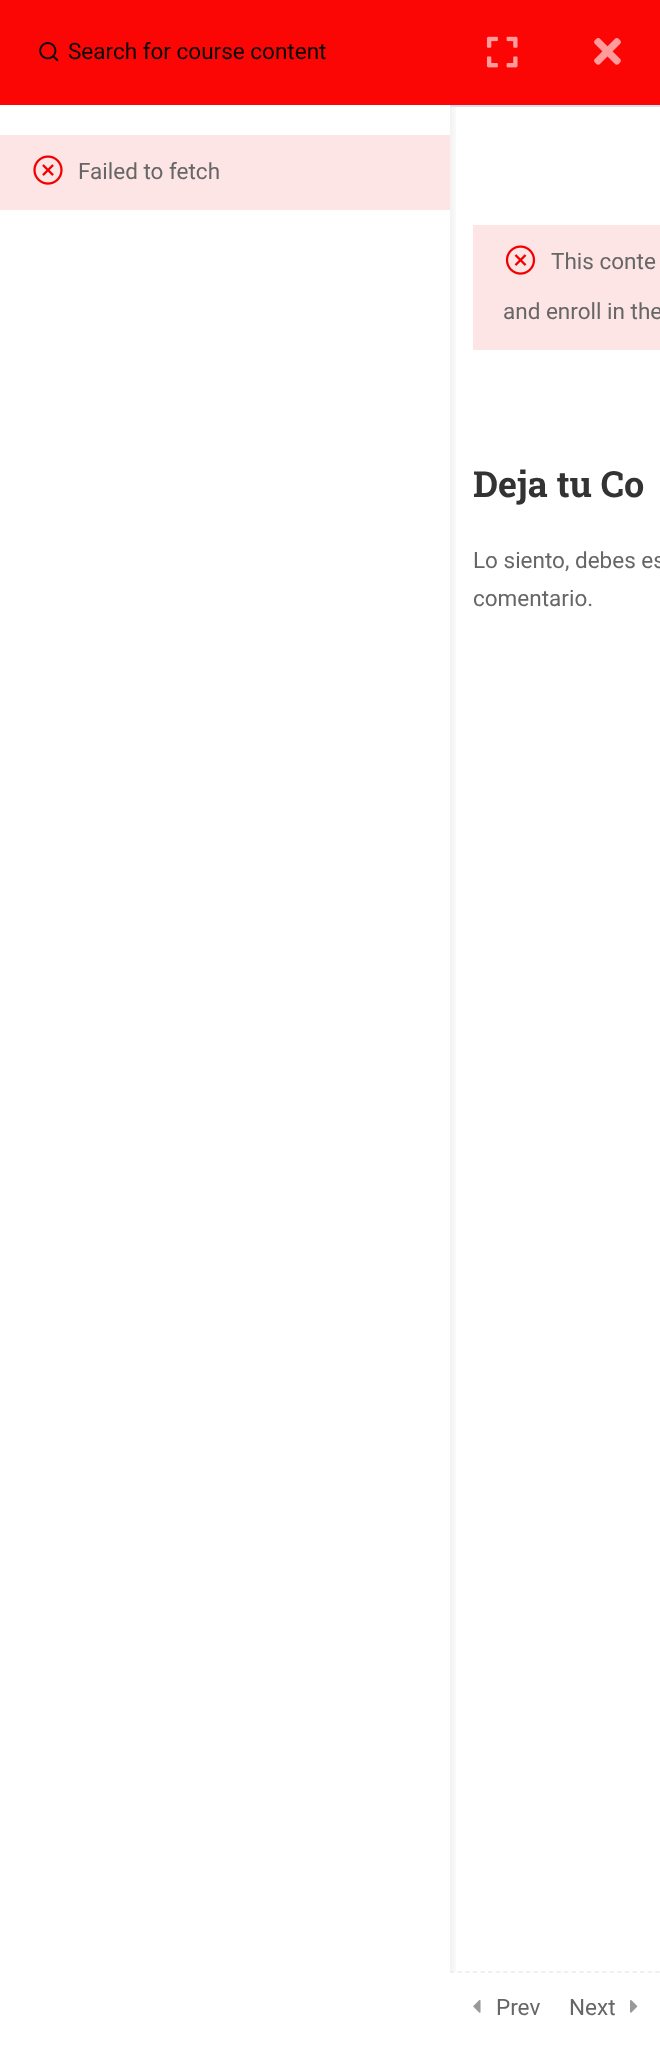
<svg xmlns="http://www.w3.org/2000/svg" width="660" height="2045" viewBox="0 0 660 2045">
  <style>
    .t1 { font: 22.5px Roboto; fill: #0a0a0a; }
    .t2 { font: 22.5px Roboto; fill: #666; }
    .t3 { font: bold 36px Roboto Slab; fill: #333; }
  </style>
  <defs>
    <clipPath id="clip1"><rect x="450" y="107" width="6" height="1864"/></clipPath>
  </defs>
  <rect width="100%" height="100%" fill="#fff"/>
  <rect x="473" y="225" width="187" height="125" fill="#fee5e5"/>
  <g clip-path="url(#clip1)">
    <rect x="0" y="3" width="450" height="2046" fill="#0000001a" filter="blur(7.5px)"/>
  </g>
  <rect x="0" y="0" width="660" height="105" fill="#fc0505"/>
  <image x="39" y="42" width="20" height="20" href="images/1.png"/>
  <text x="68" y="59" class="t1">Search for course content</text>
  <rect x="0" y="135" width="450" height="75" fill="#fee5e5"/>
  <image x="33" y="155" width="30" height="30" href="images/2.png"/>
  <text x="78" y="179" class="t2">Failed to fetch</text>
  <rect x="450" y="105" width="210" height="2" fill="#d9e0f1"/>
  <image x="486" y="36" width="32" height="32" href="images/3.png"/>
  <image x="594" y="38" width="27" height="27" href="images/4.png"/>
  <image x="505" y="245" width="31" height="30" href="images/5.png"/>
  <text x="551" y="269" class="t2">This conte</text>
  <text x="503" y="319" class="t2">and enroll in the</text>
  <text x="473" y="497" class="t3">Deja tu Co</text>
  <text x="473" y="568" class="t2">Lo siento, debes es</text>
  <text x="473" y="606" class="t2">comentario.</text>
  <rect x="450" y="1971" width="10" height="74" fill="#fff"/>
  <path d="M450 1972H660" fill="none" stroke="#ebebeb" stroke-width="1.5" stroke-dasharray="4.5 3.1"/>
  <image x="473" y="2000" width="8" height="13" href="images/6.png"/>
  <text x="496" y="2015" class="t2">Prev</text>
  <text x="569" y="2015" class="t2">Next</text>
  <image x="630" y="2000" width="8" height="13" href="images/7.png"/>
</svg>
